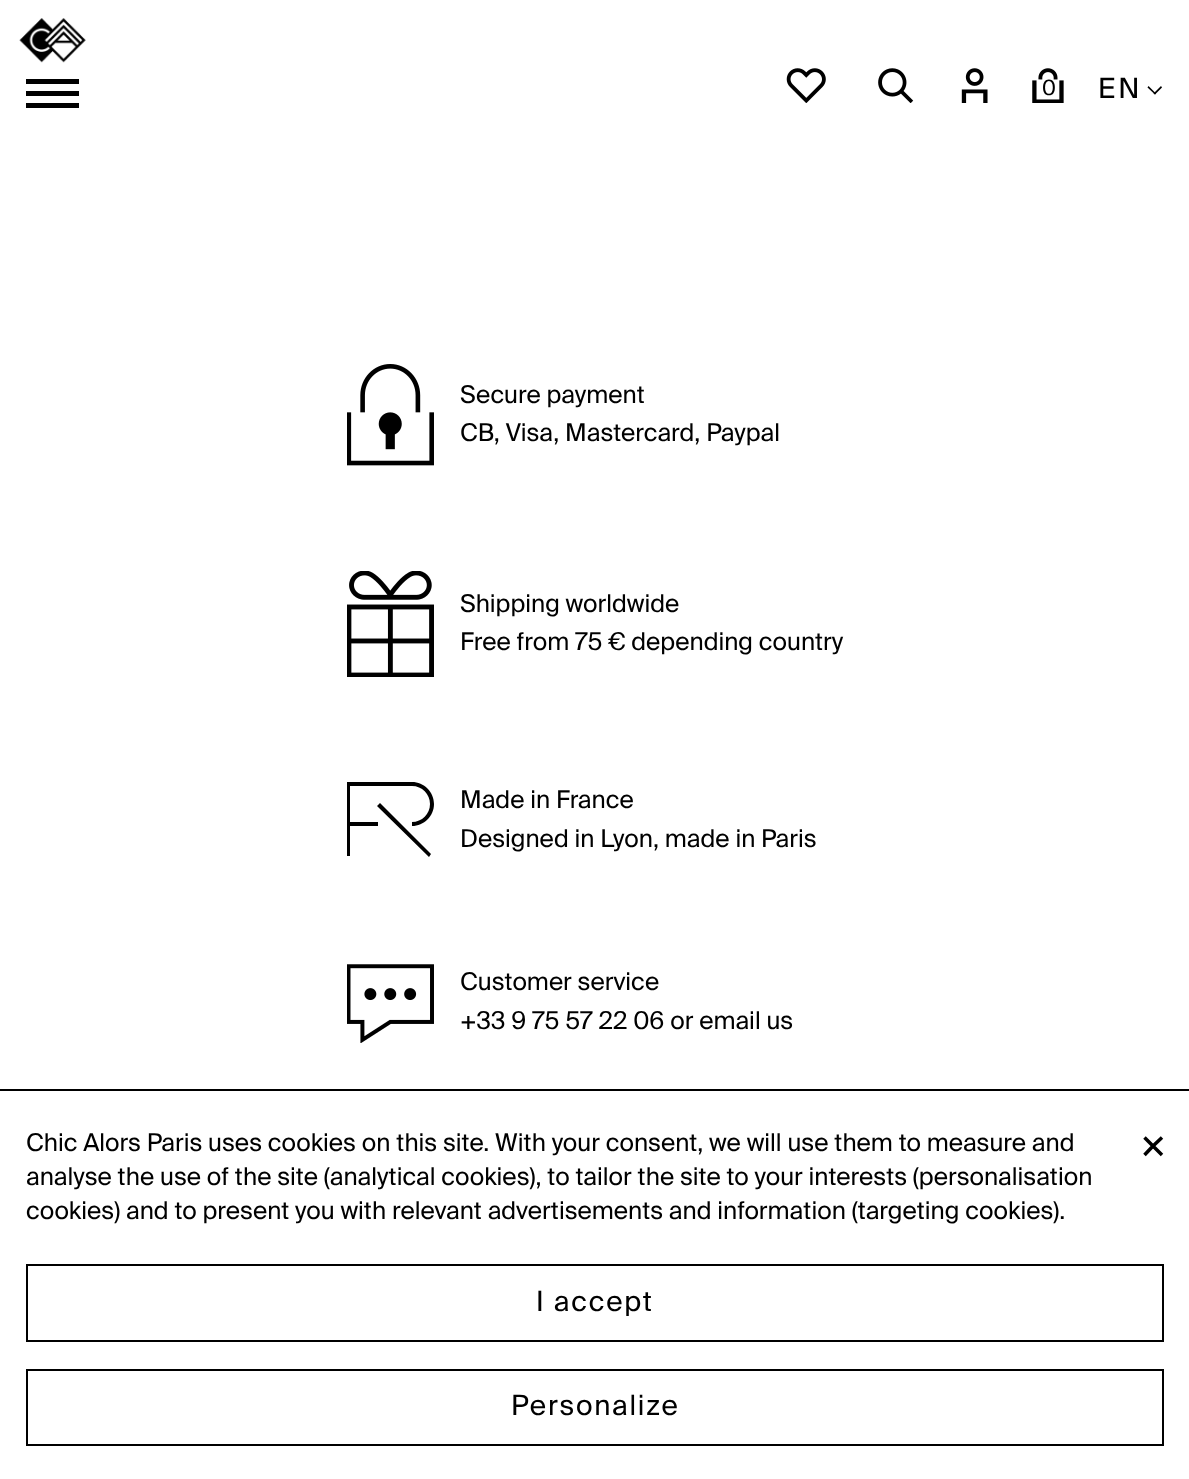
<svg xmlns="http://www.w3.org/2000/svg" width="1189" height="1479" viewBox="0 0 1189 1479">
  <style>
    .t1 { font: 21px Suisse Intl; fill: #000; }
    .t2 { font: 28px Suisse Intl; letter-spacing: 3px; fill: #000; }
    .t3 { font: 24.5px Suisse Intl; fill: #000; }
    .t4 { font: 28px Suisse Intl; letter-spacing: 1.75px; fill: #000; }
  </style>
  <rect width="100%" height="100%" fill="#fff"/>
  <image x="19" y="18" width="67" height="45" href="images/1.png"/>
  <rect x="26" y="91" width="53" height="5" fill="#000"/>
  <rect x="26" y="79" width="53" height="5" fill="#000"/>
  <rect x="26" y="103" width="53" height="5" fill="#000"/>
  <image x="786" y="68" width="40" height="35" href="images/2.png"/>
  <image x="878" y="68" width="36" height="35" href="images/3.png"/>
  <image x="961" y="68" width="27" height="35" href="images/4.png"/>
  <image x="1032" y="68" width="32" height="35" href="images/5.png"/>
  <text x="1042" y="95" class="t1">0</text>
  <text x="1098" y="98" class="t2">EN</text>
  <path d="M1153.5 93.5L1161 86L1162 87.5L1155 94.5Z" fill="#000"/>
  <path d="M1147.5 87.5L1148.5 86L1156 93.5L1155 94.5Z" fill="#000"/>
  <image x="347" y="364" width="87" height="102" href="images/6.png"/>
  <text x="460" y="403" class="t3">Secure payment</text>
  <text x="460" y="441" class="t3">CB, Visa, Mastercard, Paypal</text>
  <image x="347" y="571" width="87" height="106" href="images/7.png"/>
  <text x="460" y="612" class="t3">Shipping worldwide</text>
  <text x="460" y="650" class="t3">Free from 75 € depending country</text>
  <path d="M350 786V822H378V826H350V856H347V782H412C424 782 434 792 434 804C434 816 424 826 412 826V822C422 822 430 814 430 804C430 794 422 786 412 786ZM377 806L380 803L431 854L429 857Z" fill="#000" fill-rule="evenodd"/>
  <text x="460" y="808" class="t3">Made in France</text>
  <text x="460" y="847" class="t3">Designed in Lyon, made in Paris</text>
  <image x="347" y="964" width="87" height="79" href="images/8.png"/>
  <text x="460" y="990" class="t3">Customer service</text>
  <text x="460" y="1029" class="t3">+33 9 75 57 22 06 or email us</text>
  <rect x="0" y="1089" width="1189" height="2" fill="#000"/>
  <text x="26" y="1151" class="t3">Chic Alors Paris uses cookies on this site. With your consent, we will use them to measure and</text>
  <text x="26" y="1185" class="t3">analyse the use of the site (analytical cookies), to tailor the site to your interests (personalisation</text>
  <text x="26" y="1219" class="t3">cookies) and to present you with relevant advertisements and information (targeting cookies).</text>
  <path d="M1153 1146L1144.5 1155L1153 1146L1162 1155ZM1153 1146L1162 1137.5L1153 1146L1144.5 1137.5Z" fill="none" stroke="#000" stroke-width="3.5" stroke-linecap="square"/>
  <rect x="27" y="1265" width="1136" height="76" fill="none" stroke="#000" stroke-width="2"/>
  <text x="536" y="1311" class="t4">I accept</text>
  <rect x="27" y="1370" width="1136" height="75" fill="none" stroke="#000" stroke-width="2"/>
  <text x="511" y="1415" class="t4">Personalize</text>
</svg>
